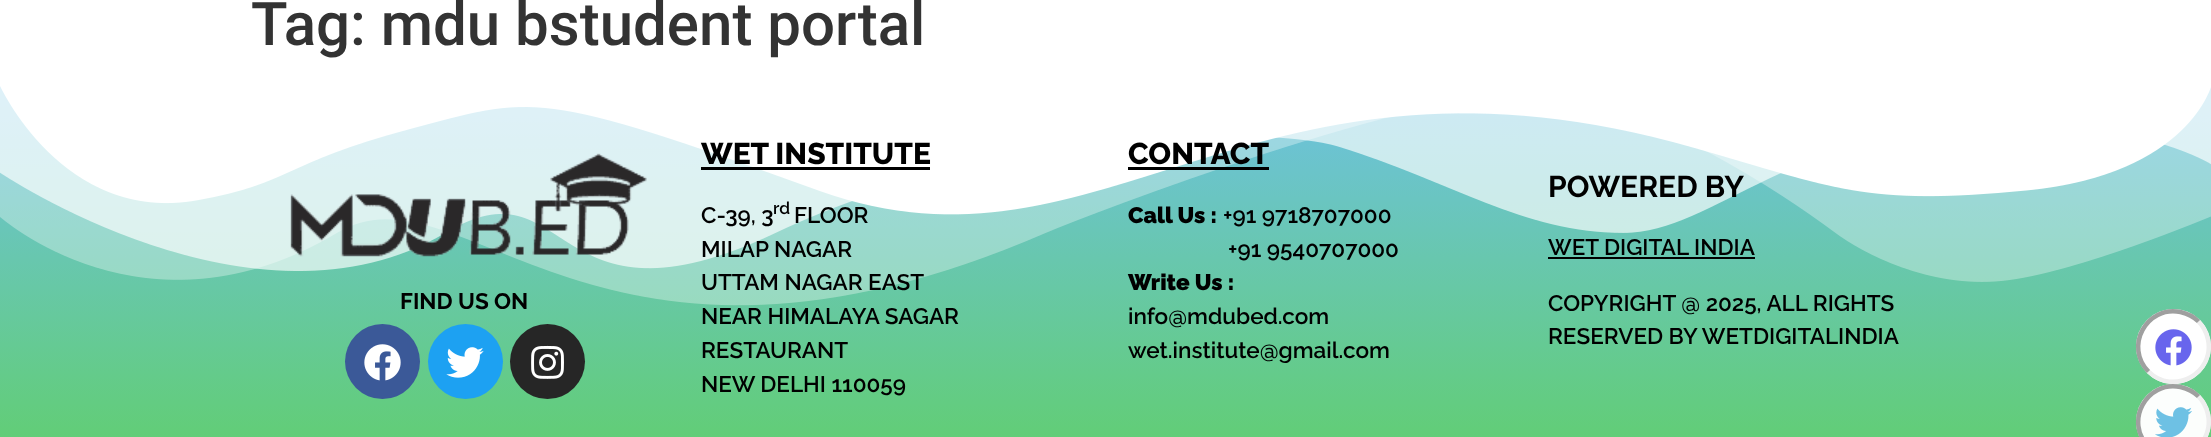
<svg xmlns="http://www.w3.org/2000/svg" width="2211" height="437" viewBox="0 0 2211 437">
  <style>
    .t1 { font: 500 60px Roboto; fill: #333; }
    .t2 { font: bold 22.5px Raleway; fill: #000; }
    .t3 { font: 800 30px Raleway; fill: #000; }
    .t4 { font: 600 22.5px Raleway; fill: #000; }
    .t5 { font: 600 17px Raleway; fill: #000; }
    .t6 { font: 900 22.5px Raleway; fill: #000; }
    .t7 { font: bold 30px Raleway; fill: #000; }
  </style>
  <defs>
    <linearGradient id="g1" gradientUnits="userSpaceOnUse" x1="1106" y1="85" x2="1106" y2="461"><stop offset="0" stop-color="#6ec1e4"/><stop offset="1" stop-color="#61ce70"/></linearGradient>
  </defs>
  <rect width="100%" height="100%" fill="#fff"/>
  <text x="251" y="45" class="t1">Tag: mdu bstudent portal</text>
  <rect x="0" y="86" width="2211" height="351" fill="url(#g1)"/>
  <image x="0" y="86" width="2211" height="220" href="images/1.png"/>
  <image x="290" y="153" width="357" height="104" href="images/2.png"/>
  <text x="400" y="309" class="t2">FIND US ON</text>
  <circle cx="382.5" cy="361.5" r="37.5" fill="#3b5998"/>
  <image x="364" y="344" width="37" height="37" href="images/3.png"/>
  <circle cx="465.5" cy="361.5" r="37.5" fill="#1da1f2"/>
  <image x="446" y="347" width="38" height="31" href="images/4.png"/>
  <circle cx="547.5" cy="361.5" r="37.5" fill="#262626"/>
  <image x="531" y="345" width="33" height="34" href="images/5.png"/>
  <text x="701" y="164" class="t3">WET INSTITUTE</text>
  <rect x="701" y="167" width="229" height="3" fill="#000"/>
  <text x="701" y="223" class="t4">C-39, 3</text>
  <text x="773" y="214" class="t5">rd</text>
  <text x="794" y="223" class="t4">FLOOR</text>
  <text x="701" y="257" class="t4">MILAP NAGAR</text>
  <text x="701" y="290" class="t4">UTTAM NAGAR EAST</text>
  <text x="701" y="324" class="t4">NEAR HIMALAYA SAGAR</text>
  <text x="701" y="358" class="t4">RESTAURANT</text>
  <text x="701" y="392" class="t4">NEW DELHI 110059</text>
  <text x="1128" y="164" class="t3">CONTACT</text>
  <rect x="1128" y="167" width="141" height="3" fill="#000"/>
  <text x="1128" y="223" class="t6">Call Us :</text>
  <text x="1223" y="223" class="t4">+91 9718707000</text>
  <text x="1228" y="257" class="t4">+91 9540707000</text>
  <text x="1128" y="290" class="t6">Write Us :</text>
  <text x="1128" y="324" class="t4">info@mdubed.com</text>
  <text x="1128" y="358" class="t4">wet.institute@gmail.com</text>
  <text x="1548" y="197" class="t7">POWERED BY</text>
  <text x="1548" y="255" class="t4">WET DIGITAL INDIA</text>
  <rect x="1548" y="257" width="207" height="2" fill="#000"/>
  <text x="1548" y="311" class="t4">COPYRIGHT @ 2025, ALL RIGHTS</text>
  <text x="1548" y="344" class="t4">RESERVED BY WETDIGITALINDIA</text>
  <circle cx="2173.5" cy="346.5" r="37.5" fill="#fff"/>
  <path d="M2198.5 321.5C2203.5 326.5 2206.5 333 2208 339.5C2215 373.5 2173 396 2148.5 371.5" fill="none" stroke="#eee" stroke-width="4.5"/>
  <path d="M2148.5 371.5C2124 347 2146.5 305 2180.5 312C2187 313.5 2193.5 316.5 2198.5 321.5" fill="none" stroke="#9f9f9f" stroke-width="4.5"/>
  <image x="2155" y="329" width="37" height="37" href="images/6.png"/>
  <circle cx="2173.5" cy="421.5" r="37.5" fill="#fffffffa"/>
  <path d="M2198.5 396.5C2203.5 401.5 2206.5 408 2208 414.5C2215 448.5 2173 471 2148.5 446.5" fill="none" stroke="#eee" stroke-width="4.5"/>
  <path d="M2148.5 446.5C2124 422 2146.5 380 2180.5 387C2187 388.5 2193.5 391.5 2198.5 396.5" fill="none" stroke="#9f9f9f" stroke-width="4.5"/>
  <image x="2155" y="407" width="37" height="30" href="images/7.png"/>
</svg>
